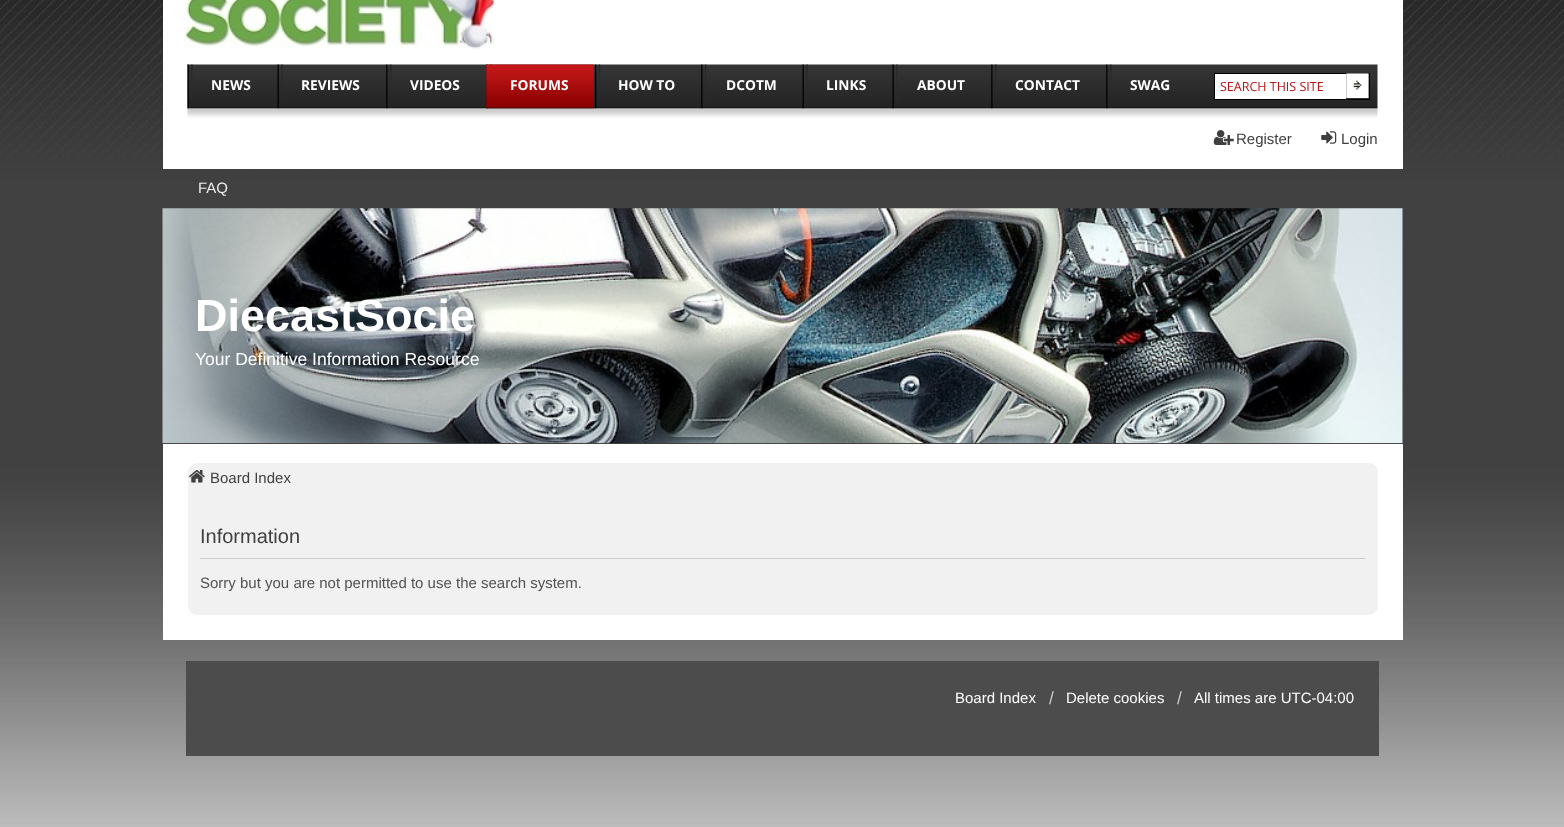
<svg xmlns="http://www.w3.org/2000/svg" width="1564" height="827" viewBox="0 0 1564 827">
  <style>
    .t1 { font: bold 13.75px Open Sans; fill: #fff; }
    .t2 { font: 12.5px Open Sans; fill: #b91415; }
    .t3 { font: 15px Liberation Sans; fill: #3f3f3f; }
    .t4 { font: 15px Liberation Sans; fill: #eee; }
    .t5 { font: bold 45px Liberation Sans; fill: #fff; }
    .t6 { font: 17.5px Liberation Sans; fill: #fff; }
    .t7 { font: 20px Liberation Sans; fill: #3f3f3f; }
    .t8 { font: 15px Liberation Sans; fill: #525252; }
    .t9 { font: 15px Liberation Sans; fill: #fff; }
    .t10 { font: 17.5px Liberation Sans; fill: #cacaca; }
  </style>
  <rect width="100%" height="100%" fill="#fff"/>
  <image x="0" y="0" width="1564" height="827" href="images/1.png"/>
  <rect x="163" y="0" width="1240" height="169" fill="#fff"/>
  <image x="187" y="64" width="1191" height="54" href="images/2.png"/>
  <image x="183" y="0" width="313" height="49" href="images/3.png"/>
  <image x="187" y="64" width="6" height="45" href="images/4.png"/>
  <text x="211" y="90" class="t1">NEWS</text>
  <image x="277" y="64" width="6" height="45" href="images/5.png"/>
  <text x="301" y="90" class="t1">REVIEWS</text>
  <image x="386" y="64" width="6" height="45" href="images/6.png"/>
  <text x="410" y="90" class="t1">VIDEOS</text>
  <image x="486" y="64" width="6" height="45" href="images/6.png"/>
  <image x="486" y="64" width="108" height="45" href="images/7.png"/>
  <text x="510" y="90" class="t1">FORUMS</text>
  <image x="595" y="64" width="6" height="45" href="images/8.png"/>
  <text x="618" y="90" class="t1">HOW TO</text>
  <image x="701" y="64" width="6" height="45" href="images/6.png"/>
  <text x="726" y="90" class="t1">DCOTM</text>
  <image x="802" y="64" width="6" height="45" href="images/9.png"/>
  <text x="826" y="90" class="t1">LINKS</text>
  <image x="892" y="64" width="6" height="45" href="images/10.png"/>
  <text x="917" y="90" class="t1">ABOUT</text>
  <image x="991" y="64" width="6" height="45" href="images/11.png"/>
  <text x="1015" y="90" class="t1">CONTACT</text>
  <image x="1106" y="64" width="6" height="45" href="images/11.png"/>
  <text x="1130" y="90" class="t1">SWAG</text>
  <rect x="1214.5" y="73.5" width="155" height="26" fill="none" stroke="#000"/>
  <rect x="1215" y="74" width="131" height="25" fill="#fff"/>
  <text x="1220" y="91" class="t2">SEARCH THIS SITE</text>
  <image x="1346" y="73" width="23" height="26" href="images/12.png"/>
  <image x="1213" y="130" width="21" height="15" href="images/13.png"/>
  <text x="1236" y="144" class="t3">Register</text>
  <image x="1321" y="131" width="16" height="13" href="images/14.png"/>
  <text x="1341" y="144" class="t3">Login</text>
  <text x="198" y="193" class="t4">FAQ</text>
  <image x="162" y="208" width="1241" height="236" href="images/15.png"/>
  <text x="195" y="331" class="t5">DiecastSocie</text>
  <text x="195" y="365" class="t6">Your Definitive Information Resource</text>
  <rect x="163" y="444" width="1240" height="196" fill="#fff"/>
  <rect x="188" y="463" width="1190" height="152" rx="9" fill="#f1f1f1"/>
  <image x="189" y="470" width="16" height="13" href="images/16.png"/>
  <text x="210" y="483" class="t3">Board Index</text>
  <rect x="200" y="558" width="1165" height="1" fill="#ccc"/>
  <text x="200" y="543" class="t7">Information</text>
  <text x="200" y="588" class="t8">Sorry but you are not permitted to use the search system.</text>
  <rect x="186" y="661" width="1193" height="95" fill="#4c4c4c"/>
  <text x="955" y="703" class="t9">Board Index</text>
  <text x="1049" y="704" class="t10">/</text>
  <text x="1066" y="703" class="t9">Delete cookies</text>
  <text x="1177" y="704" class="t10">/</text>
  <text x="1194" y="703" class="t9">All times are UTC-04:00</text>
</svg>
